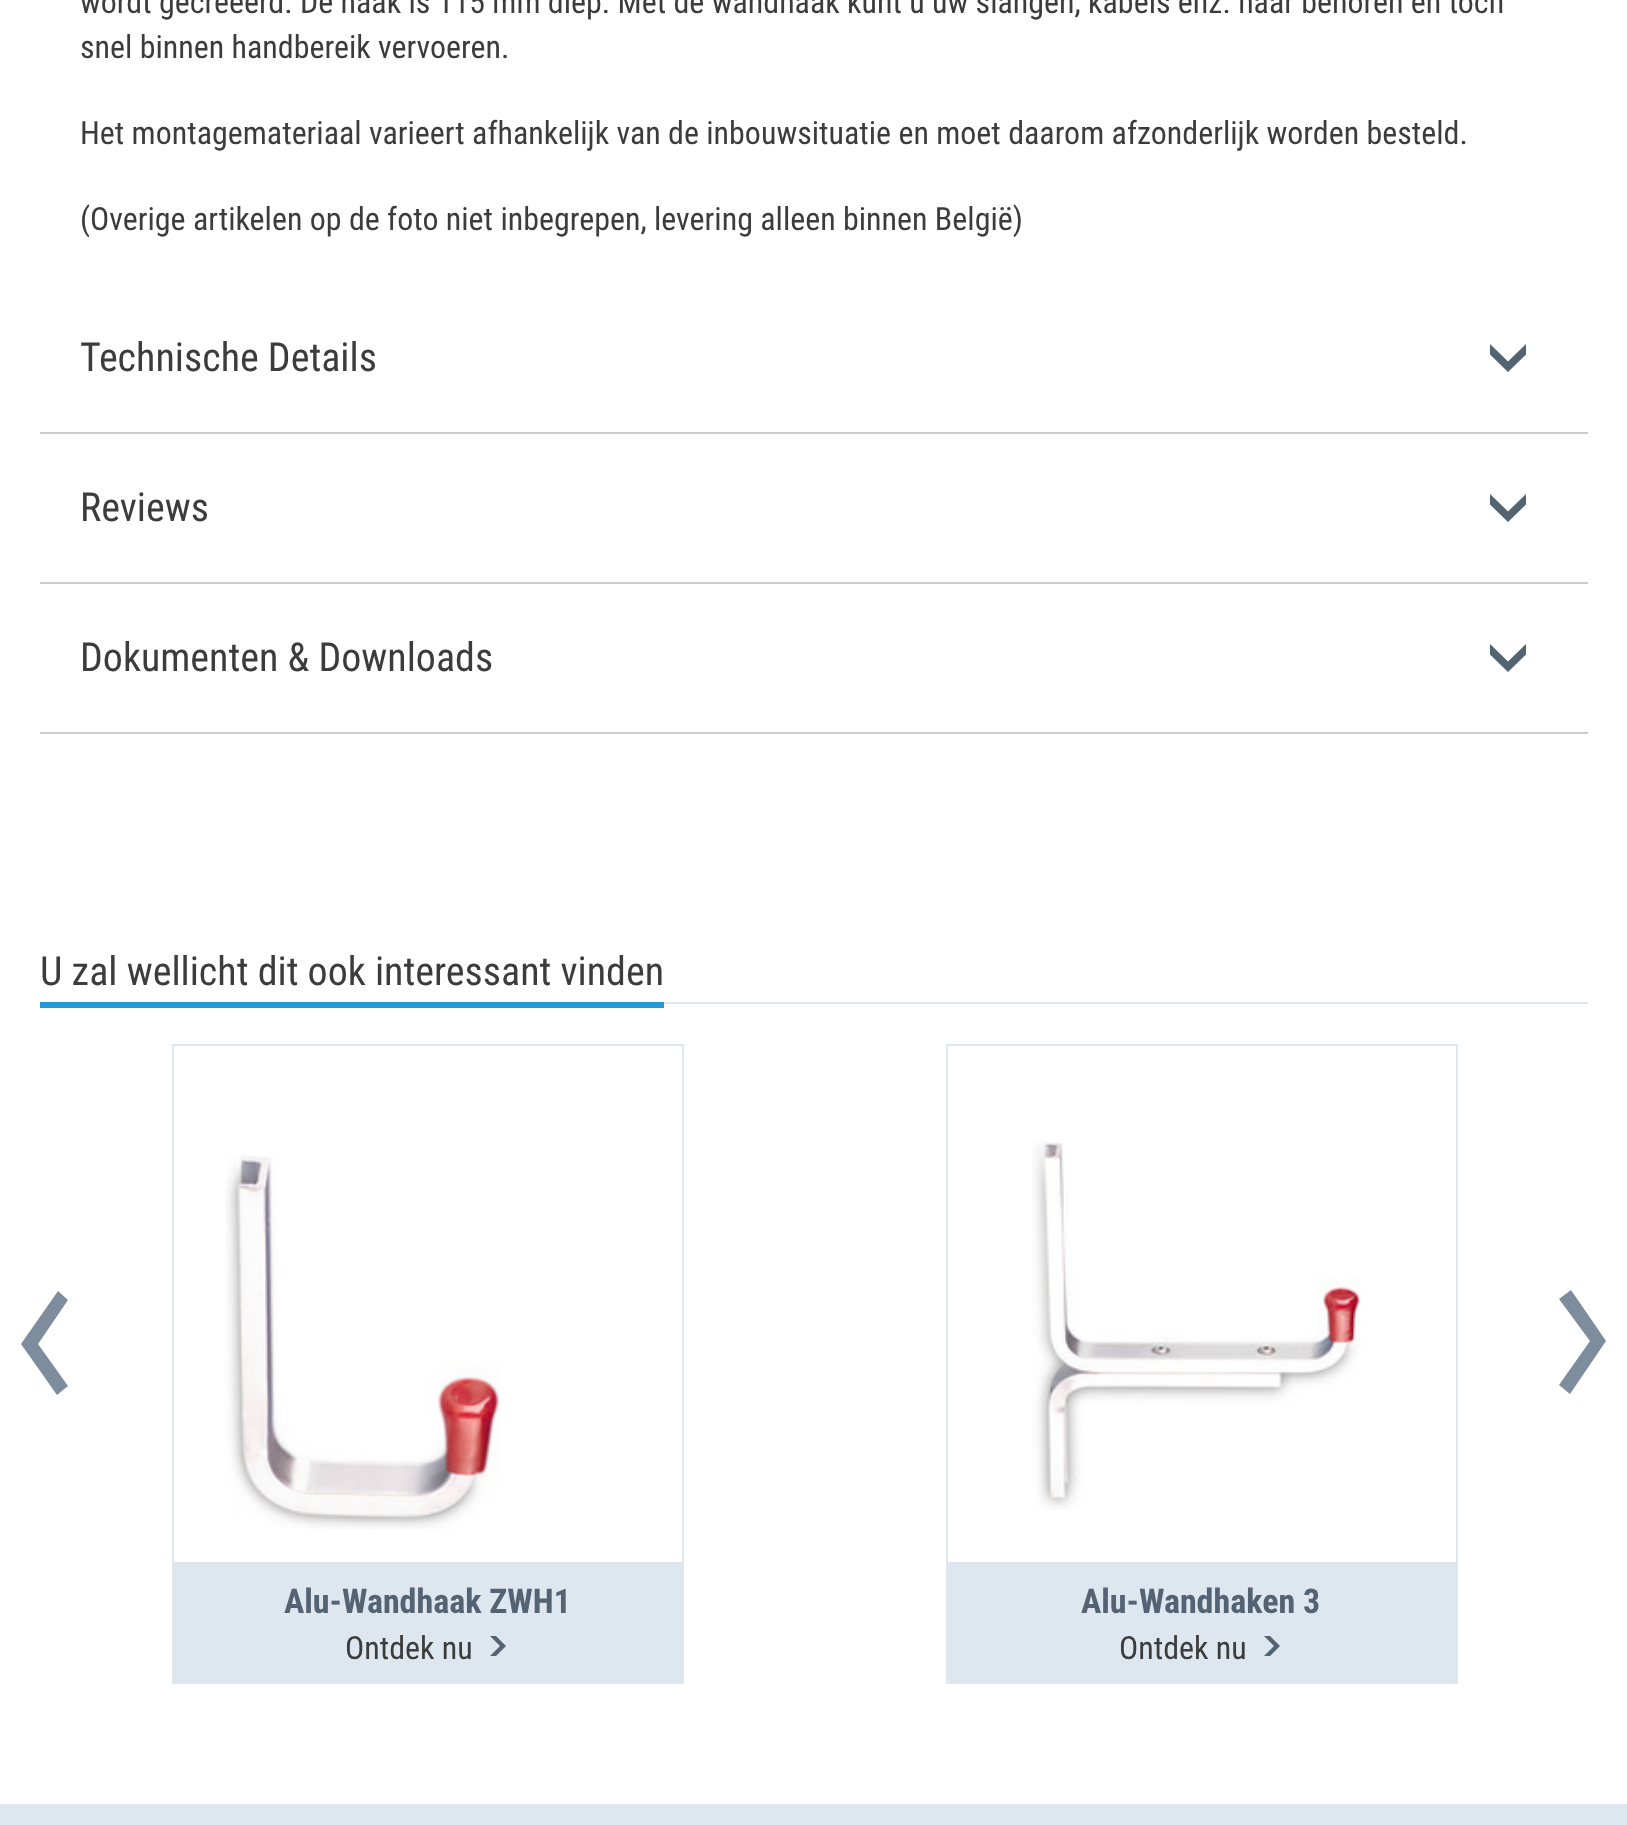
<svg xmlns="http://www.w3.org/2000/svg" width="1627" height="1825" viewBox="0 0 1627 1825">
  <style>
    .t1 { font: 32px Roboto Condensed; fill: #3c3c3c; }
    .t2 { font: 40px Roboto Condensed; fill: #3c3c3c; }
    .t3 { font: bold 34px Roboto Condensed; fill: #546373; }
  </style>
  <rect width="100%" height="100%" fill="#fff"/>
  <text x="80" y="13" class="t1">wordt gecreëerd. De haak is 115 mm diep. Met de wandhaak kunt u uw slangen, kabels enz. naar behoren en toch</text>
  <text x="80" y="58" class="t1">snel binnen handbereik vervoeren.</text>
  <text x="80" y="144" class="t1">Het montagemateriaal varieert afhankelijk van de inbouwsituatie en moet daarom afzonderlijk worden besteld.</text>
  <text x="80" y="230" class="t1">(Overige artikelen op de foto niet inbegrepen, levering alleen binnen België)</text>
  <rect x="40" y="432" width="1548" height="2" fill="#ccc"/>
  <text x="80" y="371" class="t2">Technische Details</text>
  <path d="M1526 354.5V344L1508 361.5L1490 344V354.5L1508 372Z" fill="#526372" fill-rule="evenodd"/>
  <rect x="40" y="582" width="1548" height="2" fill="#ccc"/>
  <text x="80" y="521" class="t2">Reviews</text>
  <path d="M1526 504.5V494L1508 511.5L1490 494V504.5L1508 522Z" fill="#526372" fill-rule="evenodd"/>
  <rect x="40" y="732" width="1548" height="2" fill="#ccc"/>
  <text x="80" y="671" class="t2">Dokumenten &amp; Downloads</text>
  <path d="M1526 654.5V644L1508 661.5L1490 644V654.5L1508 672Z" fill="#526372" fill-rule="evenodd"/>
  <rect x="664" y="1002" width="924" height="2" fill="#dee7f0"/>
  <text x="40" y="985" class="t2">U zal wellicht dit ook interessant vinden</text>
  <rect x="40" y="1002" width="624" height="6" fill="#219bd7"/>
  <path d="M57 1395L68 1386L38 1344L68 1300L58 1291L21 1344Z" fill="#7d8d9d"/>
  <path d="M1571 1290L1559 1299L1590 1341L1559 1385L1570 1394L1606 1341Z" fill="#7d8d9d"/>
  <rect x="173" y="1045" width="510" height="638" fill="none" stroke="#dee7f0" stroke-width="2"/>
  <image x="225" y="1155" width="276" height="375" href="images/1.png"/>
  <rect x="174" y="1562" width="508" height="120" fill="#dee7f0"/>
  <text x="284" y="1613" class="t3">Alu-Wandhaak ZWH1</text>
  <text x="345" y="1659" class="t1">Ontdek nu</text>
  <path d="M496 1636H490L500 1646L490 1656H496L506 1646Z" fill="#526372" fill-rule="evenodd"/>
  <rect x="947" y="1045" width="510" height="638" fill="none" stroke="#dee7f0" stroke-width="2"/>
  <image x="1032" y="1140" width="329" height="370" href="images/2.png"/>
  <rect x="948" y="1562" width="508" height="120" fill="#dee7f0"/>
  <text x="1081" y="1613" class="t3">Alu-Wandhaken 3</text>
  <text x="1119" y="1659" class="t1">Ontdek nu</text>
  <path d="M1270 1636H1264L1274 1646L1264 1656H1270L1280 1646Z" fill="#526372" fill-rule="evenodd"/>
  <rect x="0" y="1804" width="1627" height="21" fill="#dee7f0"/>
</svg>
